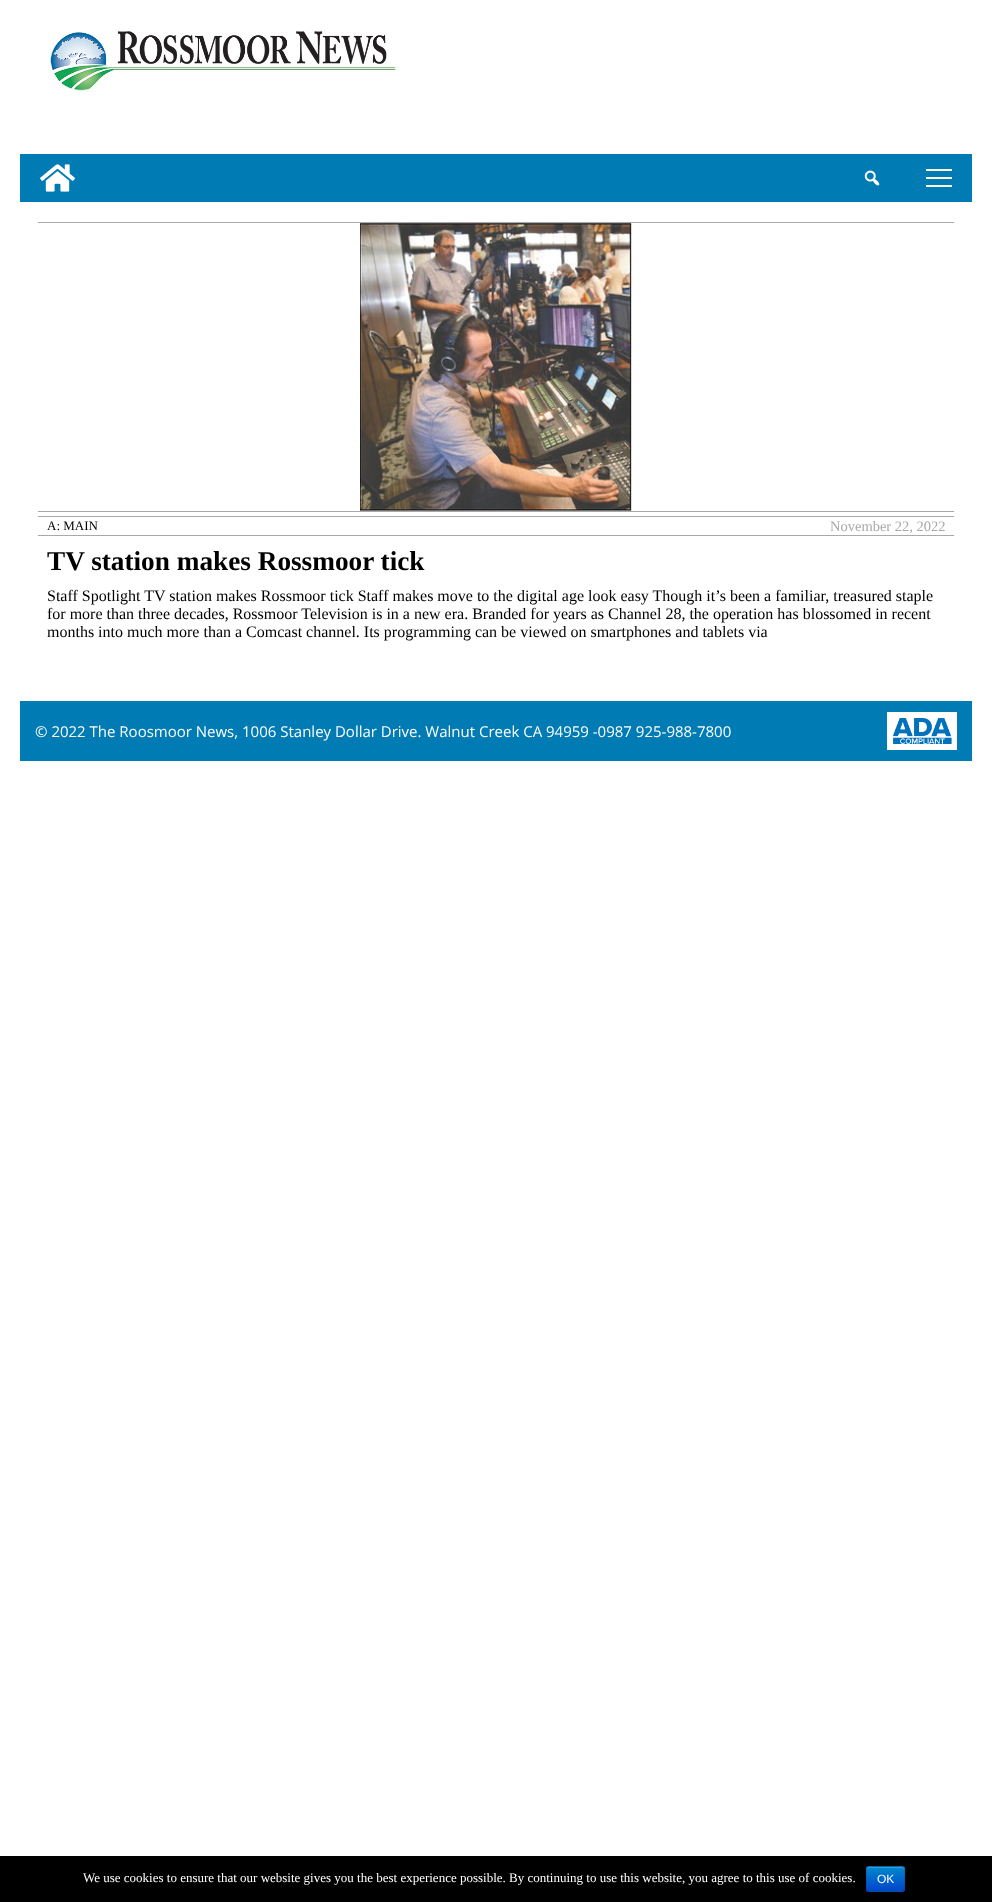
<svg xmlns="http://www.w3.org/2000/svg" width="992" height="1902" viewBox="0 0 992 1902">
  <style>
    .t1 { font: 13px Liberation Serif; fill: #000; }
    .t2 { font: 14.5px Liberation Serif; fill: #a9a9a9; }
    .t3 { font: bold 27.25px Liberation Serif; fill: #000; }
    .t4 { font: 16px Liberation Serif; fill: #000; }
    .t5 { font: 15px Open Sans; fill: #fff; }
    .t6 { font: 13px Liberation Serif; fill: #fff; }
    .t7 { font: 12px Liberation Sans; fill: #fff; }
  </style>
  <defs>
    <clipPath id="clip1"><rect x="866" y="1866" width="39" height="26" rx="3"/></clipPath>
    <linearGradient id="g1" gradientUnits="userSpaceOnUse" x1="886" y1="1867" x2="886" y2="1891"><stop offset="0" stop-color="#08c"/><stop offset="1" stop-color="#04c"/></linearGradient>
  </defs>
  <rect width="100%" height="100%" fill="#fff"/>
  <image x="49" y="31" width="348" height="61" href="images/1.png"/>
  <rect x="20" y="154" width="952" height="48" fill="#007bb4"/>
  <image x="40" y="164" width="35" height="28" href="images/2.png"/>
  <image x="864" y="170" width="16" height="16" href="images/3.png"/>
  <rect x="926" y="177" width="26" height="2" fill="#fff"/>
  <rect x="926" y="169" width="26" height="2" fill="#fff"/>
  <rect x="926" y="185" width="26" height="2" fill="#fff"/>
  <rect x="38" y="222" width="916" height="1" fill="#a9a9a9"/>
  <rect x="38" y="511" width="916" height="1" fill="#a9a9a9"/>
  <image x="360" y="223" width="272" height="288" href="images/4.png"/>
  <rect x="38" y="516" width="916" height="1" fill="#a9a9a9"/>
  <rect x="38" y="535" width="916" height="1" fill="#a9a9a9"/>
  <text x="47" y="530" class="t1">A: MAIN</text>
  <text x="830" y="531" class="t2">November 22, 2022</text>
  <text x="47" y="570" class="t3">TV station makes Rossmoor tick</text>
  <text x="47" y="601" class="t4">Staff Spotlight TV station makes Rossmoor tick Staff makes move to the digital age look easy Though it’s been a familiar, treasured staple</text>
  <text x="47" y="619" class="t4">for more than three decades, Rossmoor Television is in a new era. Branded for years as Channel 28, the operation has blossomed in recent</text>
  <text x="47" y="637" class="t4">months into much more than a Comcast channel. Its programming can be viewed on smartphones and tablets via</text>
  <rect x="20" y="701" width="952" height="60" fill="#007bb4"/>
  <text x="35" y="737" class="t5">© 2022 The Roosmoor News, 1006 Stanley Dollar Drive. Walnut Creek CA 94959 -0987 925-988-7800</text>
  <image x="887" y="712" width="70" height="38" href="images/5.png"/>
  <rect x="0" y="1856" width="992" height="46" fill="#000"/>
  <text x="83" y="1882" class="t6">We use cookies to ensure that our website gives you the best experience possible. By continuing to use this website, you agree to this use of cookies.</text>
  <rect x="866" y="1866" width="39" height="26" rx="3" fill="#006dcc"/>
  <g clip-path="url(#clip1)">
    <rect x="866" y="1867" width="39" height="24" fill="url(#g1)"/>
  </g>
  <path d="M869 1868H902C903 1868 904 1869 904 1870C904 1865.5 900.5 1867 896.5 1867H874.5C870.5 1867 867 1865.5 867 1870C867 1869 868 1868 869 1868Z" fill="#ffffff33"/>
  <path d="M904 1891C903.5 1891 902.5 1891.5 902 1891.5H869C868.5 1891.5 867.5 1891 867 1891" fill="none" stroke="#00000040"/>
  <path d="M867 1891C867 1890.5 866.5 1889.5 866.5 1889V1869C866.5 1868.5 867 1867.5 867 1867C867.5 1867 868.5 1866.5 869 1866.5H902C902.5 1866.5 903.5 1867 904 1867C904 1867.5 904.5 1868.5 904.5 1869V1889C904.5 1889.5 904 1890.5 904 1891" fill="none" stroke="#0000001a"/>
  <text x="877" y="1883" class="t7">OK</text>
</svg>
